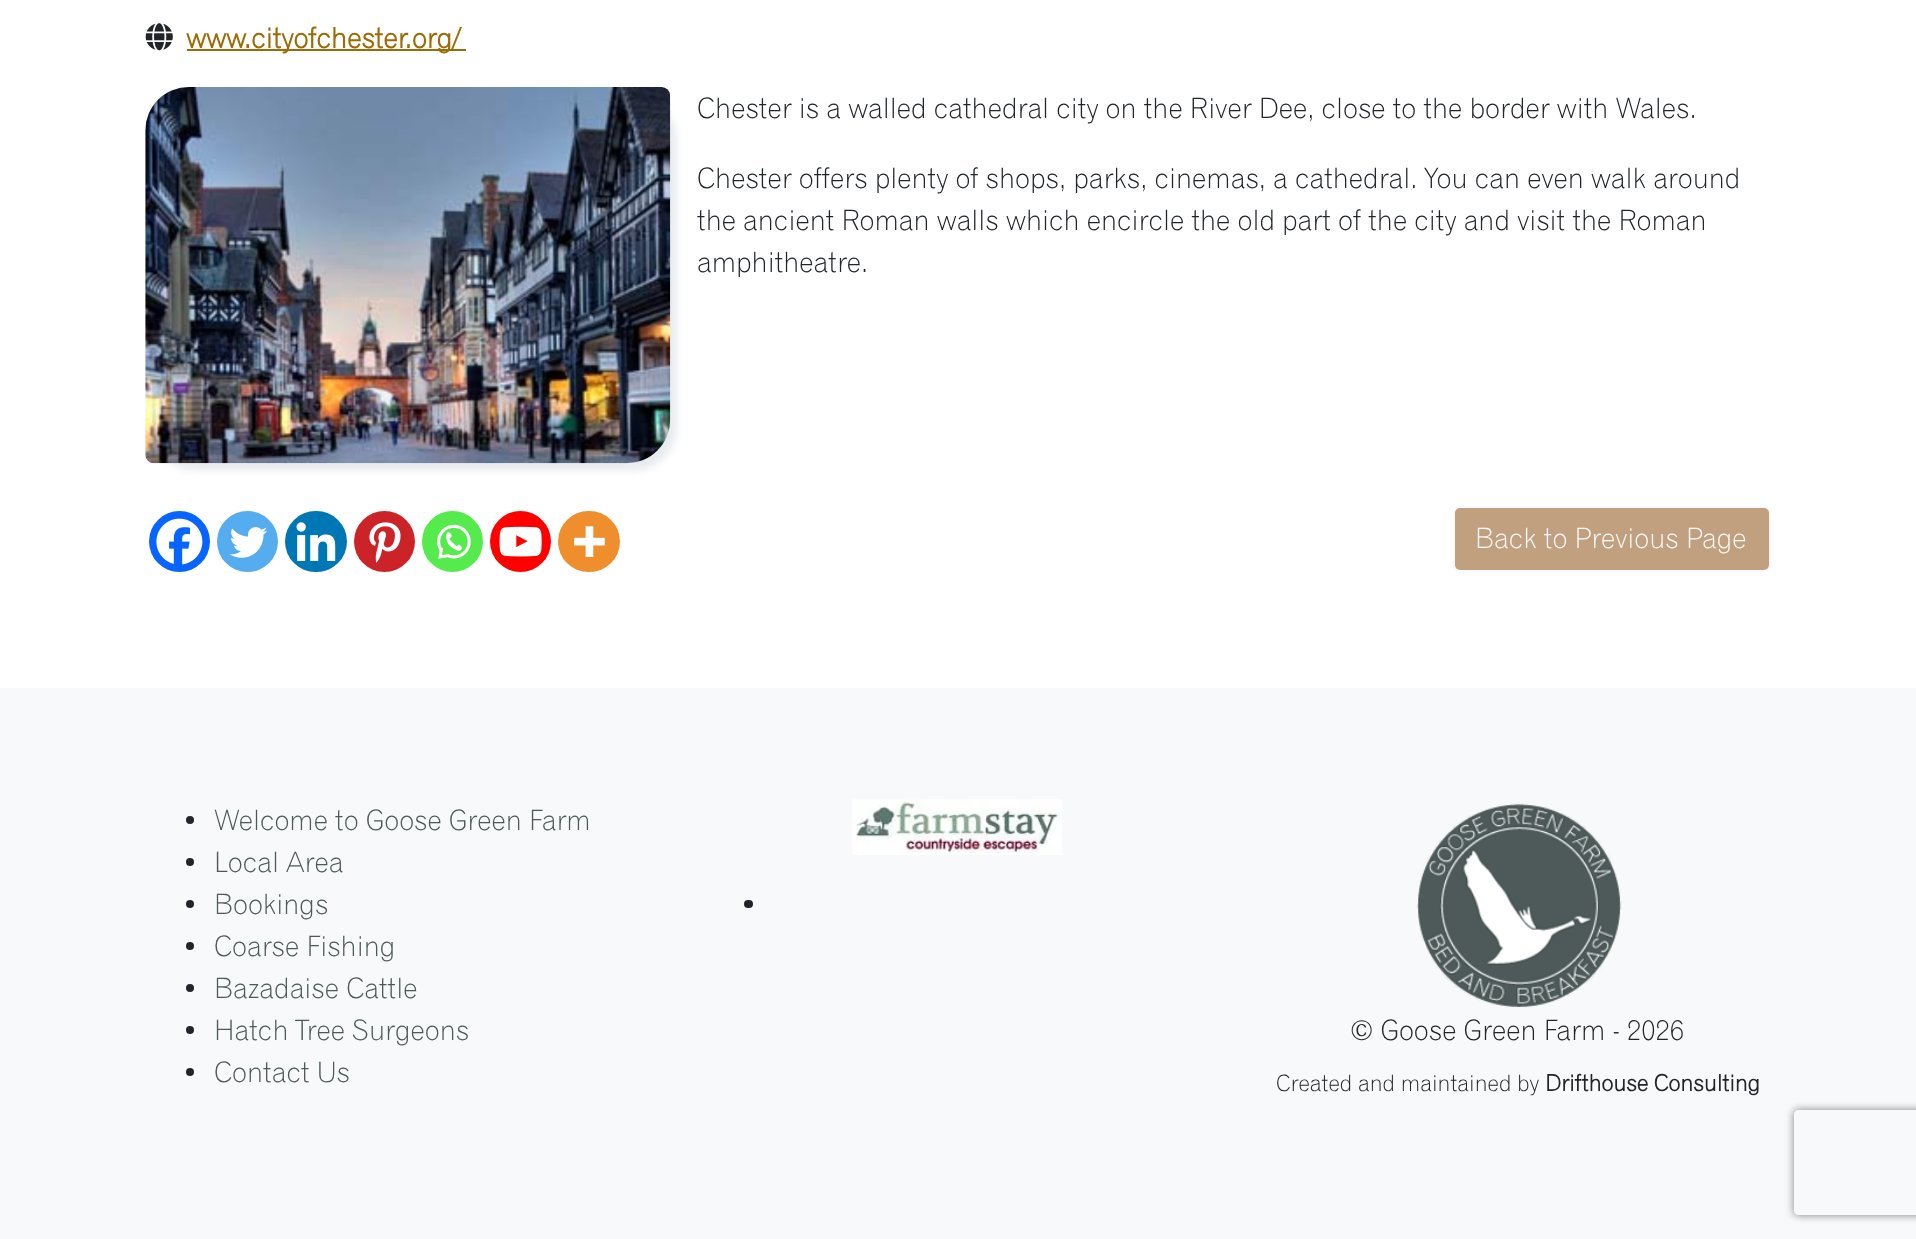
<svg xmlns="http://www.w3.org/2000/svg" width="1916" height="1239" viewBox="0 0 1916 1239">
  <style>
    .t1 { font: bold 28px 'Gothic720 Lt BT'; fill: #9c6b05; }
    .t2 { font: 300 28px 'Gothic720 Lt BT'; fill: #212529; }
    .t3 { font: 300 28px 'Gothic720 Lt BT'; fill: #f8f9fa; }
    .t4 { font: 300 28px 'Gothic720 Lt BT'; fill: #4d5858; }
    .t5 { font: 300 22.4px 'Gothic720 Lt BT'; fill: #212529; }
    .t6 { font: bold 22.4px 'Gothic720 Lt BT'; fill: #212529; }
  </style>
  <defs>
    <clipPath id="clip1"><path d="M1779 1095H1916V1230H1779ZM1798 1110H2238C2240 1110 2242 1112 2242 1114V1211C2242 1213 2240 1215 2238 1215H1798C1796 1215 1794 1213 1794 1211V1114C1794 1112 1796 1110 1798 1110Z" clip-rule="evenodd"/></clipPath>
  </defs>
  <rect width="100%" height="100%" fill="#fff"/>
  <image x="145" y="23" width="28" height="28" href="images/1.png"/>
  <rect x="187" y="49" width="279" height="2" fill="#9c6b05"/>
  <text x="186" y="48" class="t1">www.cityofchester.org/</text>
  <rect x="152" y="95" width="525" height="376" rx="44" fill="#e9ecef" filter="blur(3.5px)"/>
  <image x="145" y="87" width="526" height="377" href="images/2.png"/>
  <text x="697" y="118" class="t2">Chester is a walled cathedral city on the River Dee, close to the border with Wales.</text>
  <text x="697" y="188" class="t2">Chester offers plenty of shops, parks, cinemas, a cathedral. You can even walk around</text>
  <text x="697" y="230" class="t2">the ancient Roman walls which encircle the old part of the city and visit the Roman</text>
  <text x="697" y="272" class="t2">amphitheatre.</text>
  <circle cx="179.5" cy="541.5" r="30.5" fill="#0765fe"/>
  <image x="156" y="518" width="47" height="47" href="images/3.png"/>
  <circle cx="247.5" cy="541.5" r="30.5" fill="#55acee"/>
  <image x="229" y="527" width="39" height="31" href="images/4.png"/>
  <rect x="285" y="511" width="62" height="61" rx="30.5" fill="#0077b5"/>
  <image x="296" y="522" width="40" height="39" href="images/5.png"/>
  <circle cx="384.5" cy="541.5" r="30.5" fill="#cc2329"/>
  <image x="369" y="522" width="32" height="41" href="images/6.png"/>
  <circle cx="452.5" cy="541.5" r="30.5" fill="#55eb4c"/>
  <image x="437" y="524" width="34" height="35" href="images/7.png"/>
  <circle cx="520.5" cy="541.5" r="30.5" fill="#f00"/>
  <image x="499" y="526" width="43" height="31" href="images/8.png"/>
  <rect x="558" y="511" width="62" height="61" rx="30.5" fill="#ee8e2d"/>
  <image x="574" y="526" width="31" height="31" href="images/9.png"/>
  <rect x="1454" y="507" width="316" height="64" rx="6" fill="#c0a07e" stroke="#f8f9fa" stroke-width="2"/>
  <text x="1475" y="548" class="t3">Back to Previous Page</text>
  <rect x="0" y="688" width="1916" height="551" fill="#f8f9fa"/>
  <circle cx="190" cy="820" r="4" fill="#212529"/>
  <text x="214" y="830" class="t4">Welcome to Goose Green Farm</text>
  <circle cx="190" cy="862" r="4" fill="#212529"/>
  <text x="214" y="872" class="t4">Local Area</text>
  <circle cx="190" cy="904" r="4" fill="#212529"/>
  <text x="214" y="914" class="t4">Bookings</text>
  <circle cx="190" cy="946" r="4" fill="#212529"/>
  <text x="214" y="956" class="t4">Coarse Fishing</text>
  <circle cx="190" cy="988" r="4" fill="#212529"/>
  <text x="214" y="998" class="t4">Bazadaise Cattle</text>
  <circle cx="190" cy="1030" r="4" fill="#212529"/>
  <text x="214" y="1040" class="t4">Hatch Tree Surgeons</text>
  <circle cx="190" cy="1072" r="4" fill="#212529"/>
  <text x="214" y="1082" class="t4">Contact Us</text>
  <image x="852" y="799" width="210" height="56" href="images/10.png"/>
  <rect x="744" y="900" width="9" height="8" rx="4" fill="#212529"/>
  <image x="1416" y="803" width="206" height="205" href="images/11.png"/>
  <text x="1350" y="1040" class="t2">© Goose Green Farm - 2026</text>
  <text x="1276" y="1091" class="t5">Created and maintained by</text>
  <text x="1545" y="1091" class="t6">Drifthouse Consulting</text>
  <g clip-path="url(#clip1)">
    <rect x="1794" y="1110" width="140" height="105" rx="4" fill="#808080" filter="blur(4.5px)"/>
  </g>
</svg>
